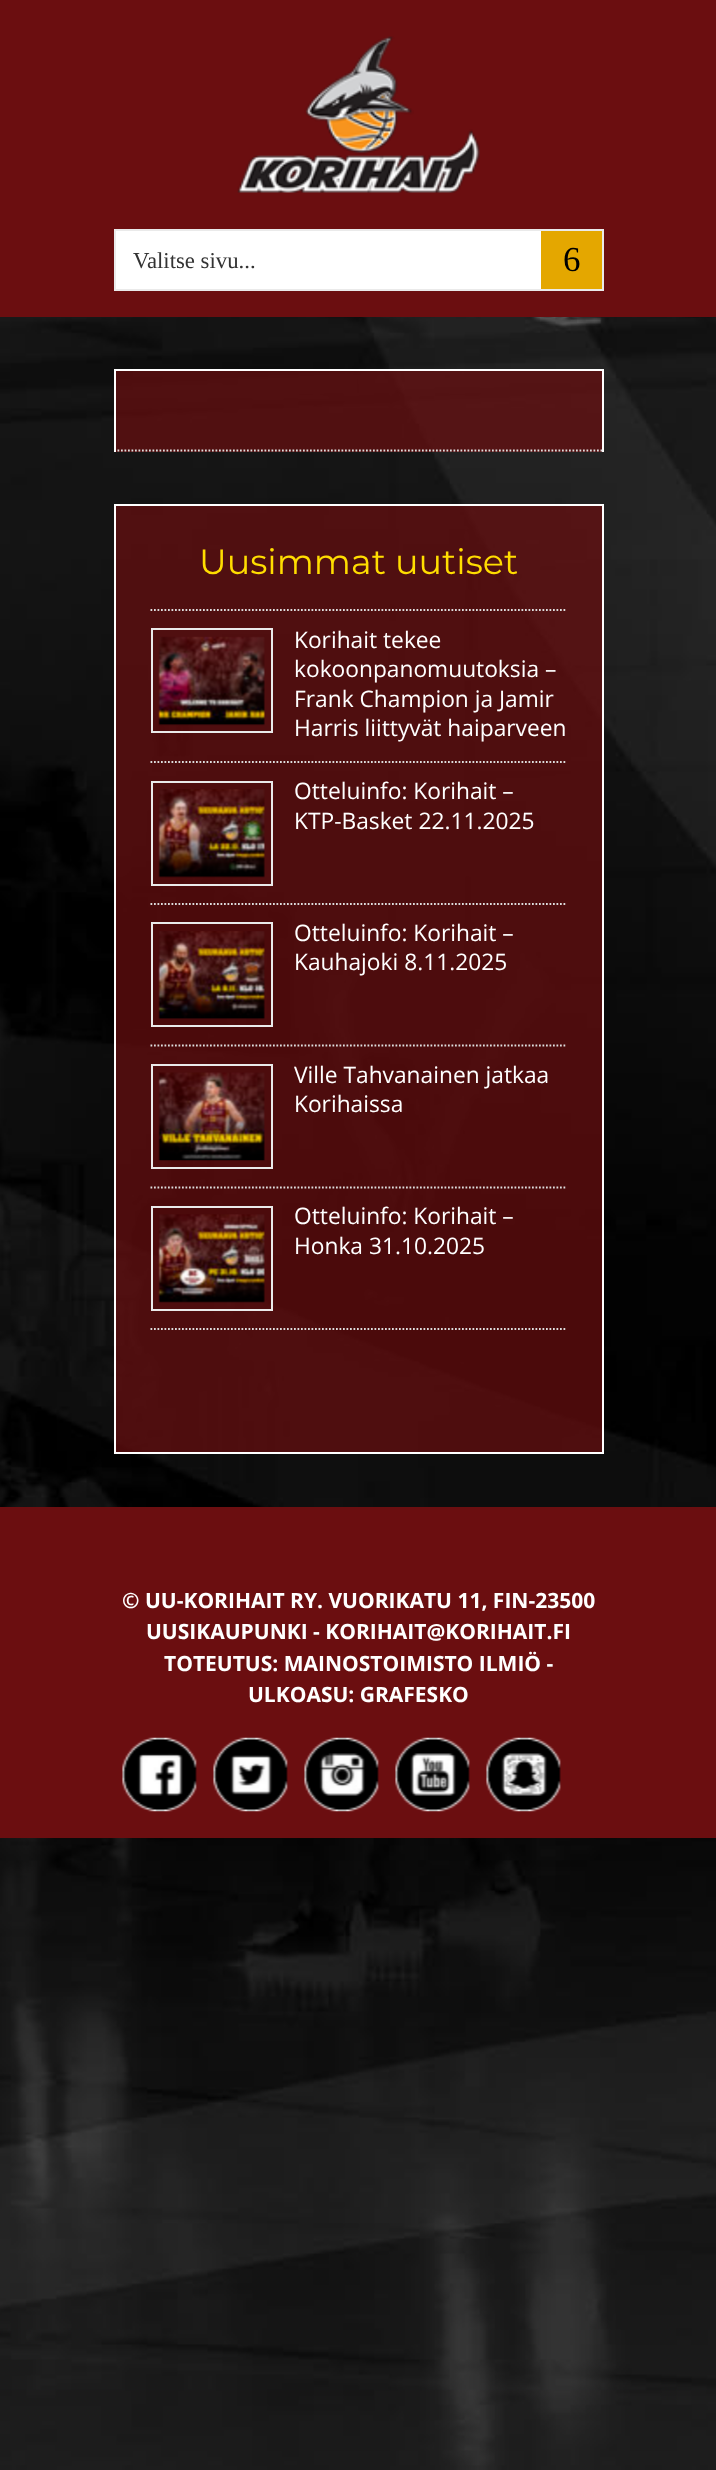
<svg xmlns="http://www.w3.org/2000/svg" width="716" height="2470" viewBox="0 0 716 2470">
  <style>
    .t1 { font: 22.75px Liberation Serif; fill: #333; }
    .t2 { font: 35px Liberation Serif; fill: #000; }
    .t3 { font: 35px Montserrat; fill: #fd0; }
    .t4 { font: 22.75px Open Sans; fill: #fff; }
    .t5 { font: bold 21px Open Sans; fill: #fff; }
  </style>
  <rect width="100%" height="100%" fill="#fff"/>
  <image x="0" y="317" width="716" height="2153" href="images/1.png"/>
  <rect x="0" y="0" width="716" height="317" fill="#6b0e10"/>
  <image x="237" y="36" width="243" height="157" href="images/2.png"/>
  <rect x="116" y="231" width="425" height="58" fill="#fff"/>
  <rect x="115" y="230" width="488" height="60" fill="none" stroke="#eaeaea" stroke-width="2"/>
  <text x="133" y="268" class="t1">Valitse sivu...</text>
  <rect x="541" y="231" width="61" height="58" fill="#e4a700"/>
  <text x="563" y="271" class="t2">6</text>
  <rect x="541" y="317" width="36" height="6" fill="#0000000d"/>
  <rect x="116" y="371" width="486" height="81" fill="#6b0e10b3"/>
  <rect x="114" y="369" width="490" height="2" fill="#fff"/>
  <rect x="602" y="369" width="2" height="83" fill="#fff"/>
  <path d="M114 450.5H604" fill="none" stroke="#dedede" stroke-width="1.8" stroke-dasharray="1.75 1.75"/>
  <rect x="114" y="369" width="2" height="83" fill="#fff"/>
  <rect x="115" y="505" width="488" height="948" fill="#6b0e10b3" stroke="#fff" stroke-width="2"/>
  <path d="M150.5 610H567" fill="none" stroke="#dedede" stroke-width="1.8" stroke-dasharray="1.75 1.75"/>
  <text x="199" y="574" class="t3">Uusimmat uutiset</text>
  <path d="M150.5 762H567" fill="none" stroke="#dedede" stroke-width="1.8" stroke-dasharray="1.75 1.75"/>
  <rect x="152" y="629" width="120" height="103" fill="none" stroke="#eaeaea" stroke-width="2"/>
  <image x="158" y="636" width="107" height="90" href="images/3.png"/>
  <text x="294" y="648" class="t4">Korihait tekee</text>
  <text x="294" y="677" class="t4">kokoonpanomuutoksia –</text>
  <text x="294" y="707" class="t4">Frank Champion ja Jamir</text>
  <text x="294" y="736" class="t4">Harris liittyvät haiparveen</text>
  <path d="M150.5 904H567" fill="none" stroke="#dedede" stroke-width="1.8" stroke-dasharray="1.75 1.75"/>
  <rect x="152" y="782" width="120" height="103" fill="none" stroke="#eaeaea" stroke-width="2"/>
  <image x="158" y="789" width="107" height="89" href="images/4.png"/>
  <text x="294" y="799" class="t4">Otteluinfo: Korihait –</text>
  <text x="294" y="829" class="t4">KTP-Basket 22.11.2025</text>
  <path d="M150.5 1045.5H567" fill="none" stroke="#dedede" stroke-width="1.8" stroke-dasharray="1.75 1.75"/>
  <rect x="152" y="923" width="120" height="103" fill="none" stroke="#eaeaea" stroke-width="2"/>
  <image x="158" y="931" width="107" height="89" href="images/5.png"/>
  <text x="294" y="941" class="t4">Otteluinfo: Korihait –</text>
  <text x="294" y="970" class="t4">Kauhajoki 8.11.2025</text>
  <path d="M150.5 1187.5H567" fill="none" stroke="#dedede" stroke-width="1.8" stroke-dasharray="1.75 1.75"/>
  <rect x="152" y="1065" width="120" height="103" fill="none" stroke="#eaeaea" stroke-width="2"/>
  <image x="158" y="1072" width="107" height="89" href="images/6.png"/>
  <text x="294" y="1083" class="t4">Ville Tahvanainen jatkaa</text>
  <text x="294" y="1112" class="t4">Korihaissa</text>
  <path d="M150.5 1329H567" fill="none" stroke="#dedede" stroke-width="1.8" stroke-dasharray="1.75 1.75"/>
  <rect x="152" y="1207" width="120" height="103" fill="none" stroke="#eaeaea" stroke-width="2"/>
  <image x="158" y="1214" width="107" height="89" href="images/7.png"/>
  <text x="294" y="1224" class="t4">Otteluinfo: Korihait –</text>
  <text x="294" y="1254" class="t4">Honka 31.10.2025</text>
  <rect x="0" y="1507" width="716" height="331" fill="#6b0e10"/>
  <text x="122" y="1608" class="t5">© UU-KORIHAIT RY. VUORIKATU 11, FIN-23500</text>
  <text x="146" y="1639" class="t5">UUSIKAUPUNKI - KORIHAIT@KORIHAIT.FI</text>
  <text x="164" y="1671" class="t5">TOTEUTUS: MAINOSTOIMISTO ILMIÖ -</text>
  <text x="248" y="1702" class="t5">ULKOASU: GRAFESKO</text>
  <image x="122" y="1737" width="75" height="75" href="images/8.png"/>
  <image x="213" y="1737" width="75" height="75" href="images/9.png"/>
  <image x="304" y="1737" width="75" height="75" href="images/10.png"/>
  <image x="395" y="1737" width="75" height="75" href="images/11.png"/>
  <image x="486" y="1737" width="75" height="75" href="images/12.png"/>
</svg>
